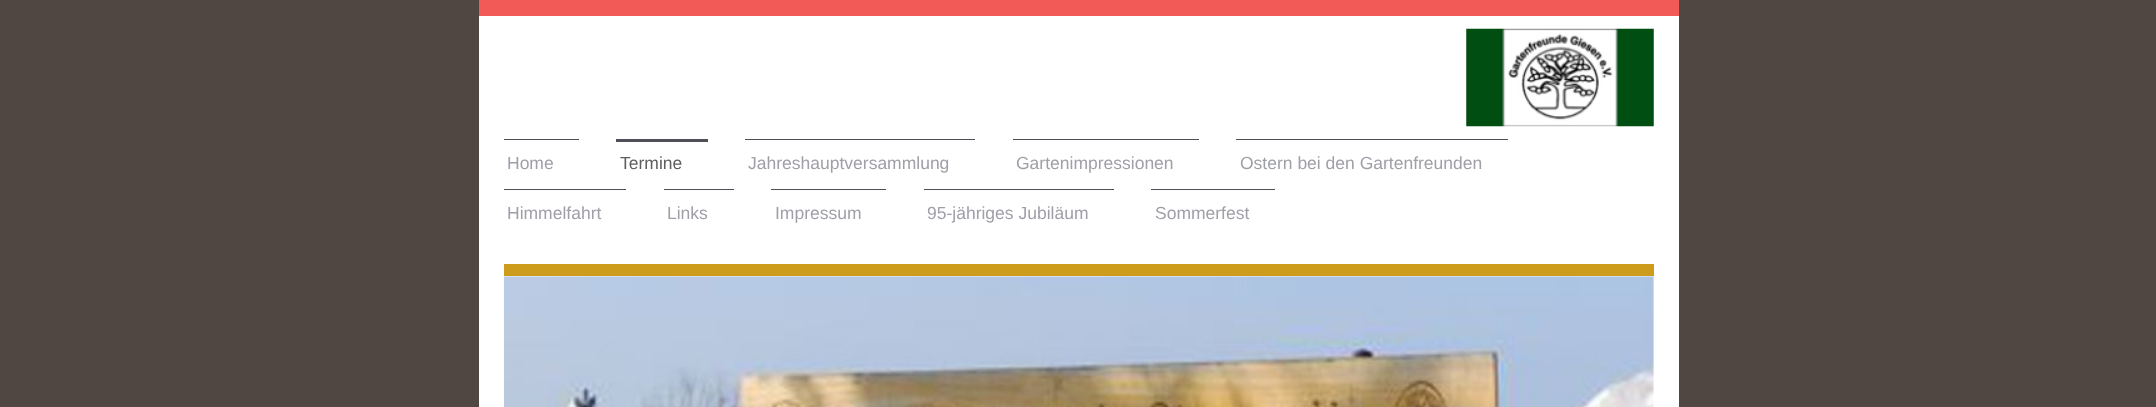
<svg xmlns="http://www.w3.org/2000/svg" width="2156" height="407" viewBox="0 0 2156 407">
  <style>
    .t1 { font: 17.5px Liberation Sans; fill: #9f9fa8; }
    .t2 { font: 17.5px Liberation Sans; fill: #5e5e5e; }
  </style>
  <rect width="100%" height="100%" fill="#504742"/>
  <rect x="479" y="16" width="1200" height="391" fill="#fff"/>
  <rect x="479" y="0" width="1200" height="16" fill="#f25a58"/>
  <image x="1466" y="28" width="188" height="99" href="images/1.png"/>
  <rect x="504" y="139" width="75" height="1" fill="#4f4f58"/>
  <text x="507" y="169" class="t1">Home</text>
  <rect x="616" y="139" width="92" height="3" fill="#4f4f58"/>
  <text x="620" y="169" class="t2">Termine</text>
  <rect x="745" y="139" width="230" height="1" fill="#4f4f58"/>
  <text x="748" y="169" class="t1">Jahreshauptversammlung</text>
  <rect x="1013" y="139" width="186" height="1" fill="#4f4f58"/>
  <text x="1016" y="169" class="t1">Gartenimpressionen</text>
  <rect x="1236" y="139" width="272" height="1" fill="#4f4f58"/>
  <text x="1240" y="169" class="t1">Ostern bei den Gartenfreunden</text>
  <rect x="504" y="189" width="122" height="1" fill="#4f4f58"/>
  <text x="507" y="219" class="t1">Himmelfahrt</text>
  <rect x="664" y="189" width="70" height="1" fill="#4f4f58"/>
  <text x="667" y="219" class="t1">Links</text>
  <rect x="771" y="189" width="115" height="1" fill="#4f4f58"/>
  <text x="775" y="219" class="t1">Impressum</text>
  <rect x="924" y="189" width="190" height="1" fill="#4f4f58"/>
  <text x="927" y="219" class="t1">95-jähriges Jubiläum</text>
  <rect x="1151" y="189" width="124" height="1" fill="#4f4f58"/>
  <text x="1155" y="219" class="t1">Sommerfest</text>
  <rect x="504" y="264" width="1150" height="12" fill="#ce9c1c"/>
  <image x="503" y="276" width="1151" height="131" href="images/2.png"/>
</svg>
